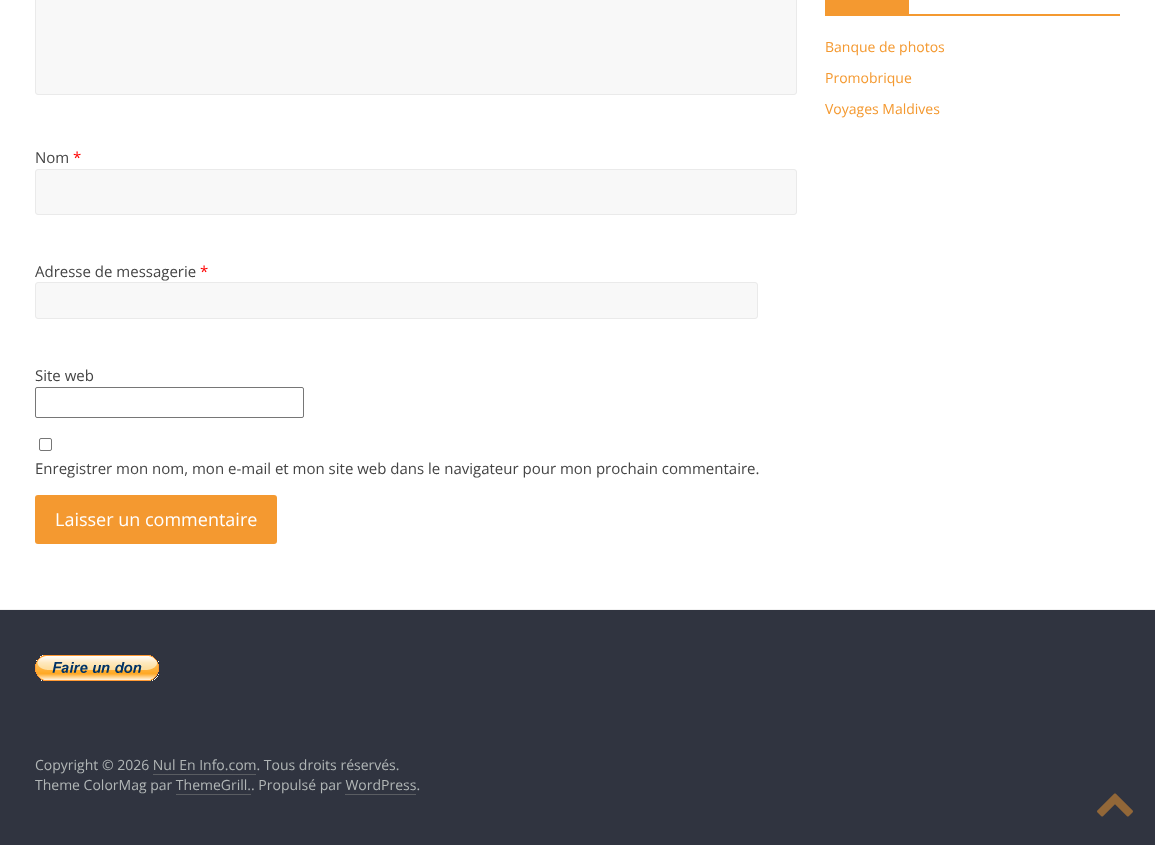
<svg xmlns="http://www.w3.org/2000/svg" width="1155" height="845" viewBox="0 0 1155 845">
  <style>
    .t1 { font: 14px Open Sans; fill: #f49930; }
    .t2 { font: 15px Open Sans; fill: #444; }
    .t3 { font: 15px Open Sans; fill: #f00; }
    .t4 { font: 18px Open Sans; fill: #fff; }
    .t5 { font: 14px Open Sans; fill: #b1b6b6; }
  </style>
  <rect width="100%" height="100%" fill="#fff"/>
  <rect x="825" y="14" width="295" height="2" fill="#f49930"/>
  <rect x="825" y="0" width="84" height="14" fill="#f49930"/>
  <text x="825" y="52" class="t1">Banque de photos</text>
  <text x="825" y="83" class="t1">Promobrique</text>
  <text x="825" y="114" class="t1">Voyages Maldives</text>
  <rect x="35.5" y="-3.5" width="761" height="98" rx="2.5" fill="#f8f8f8" stroke="#eaeaea"/>
  <text x="35" y="163" class="t2">Nom</text>
  <text x="73" y="163" class="t3">*</text>
  <rect x="35.5" y="169.5" width="761" height="45" rx="2.5" fill="#f8f8f8" stroke="#eaeaea"/>
  <text x="35" y="277" class="t2">Adresse de messagerie</text>
  <text x="200" y="277" class="t3">*</text>
  <rect x="35.5" y="282.5" width="722" height="36" rx="2.5" fill="#f8f8f8" stroke="#eaeaea"/>
  <text x="35" y="381" class="t2">Site web</text>
  <rect x="35.5" y="387.5" width="268" height="30" rx="1.5" fill="none" stroke="#767676"/>
  <rect x="39.5" y="438.5" width="12" height="12" rx="1.5" fill="none" stroke="#767676"/>
  <text x="35" y="474" class="t2">Enregistrer mon nom, mon e-mail et mon site web dans le navigateur pour mon prochain commentaire.</text>
  <rect x="35" y="495" width="242" height="49" rx="3" fill="#f49930"/>
  <text x="55" y="526" class="t4">Laisser un commentaire</text>
  <rect x="0" y="610" width="1155" height="235" fill="#303440"/>
  <rect x="0" y="609" width="1155" height="1" fill="#f2f2f2"/>
  <image x="35" y="655" width="124" height="26" href="images/1.png"/>
  <text x="35" y="770" class="t5">Copyright © 2026 Nul En Info.com. Tous droits réservés.</text>
  <rect x="153" y="774" width="103" height="1" fill="#5a5d62"/>
  <text x="35" y="790" class="t5">Theme ColorMag par ThemeGrill.. Propulsé par WordPress.</text>
  <rect x="176" y="794" width="75" height="1" fill="#5a5d62"/>
  <rect x="345" y="794" width="71" height="1" fill="#5a5d62"/>
  <image x="1097" y="793" width="36" height="24" href="images/2.png"/>
</svg>
